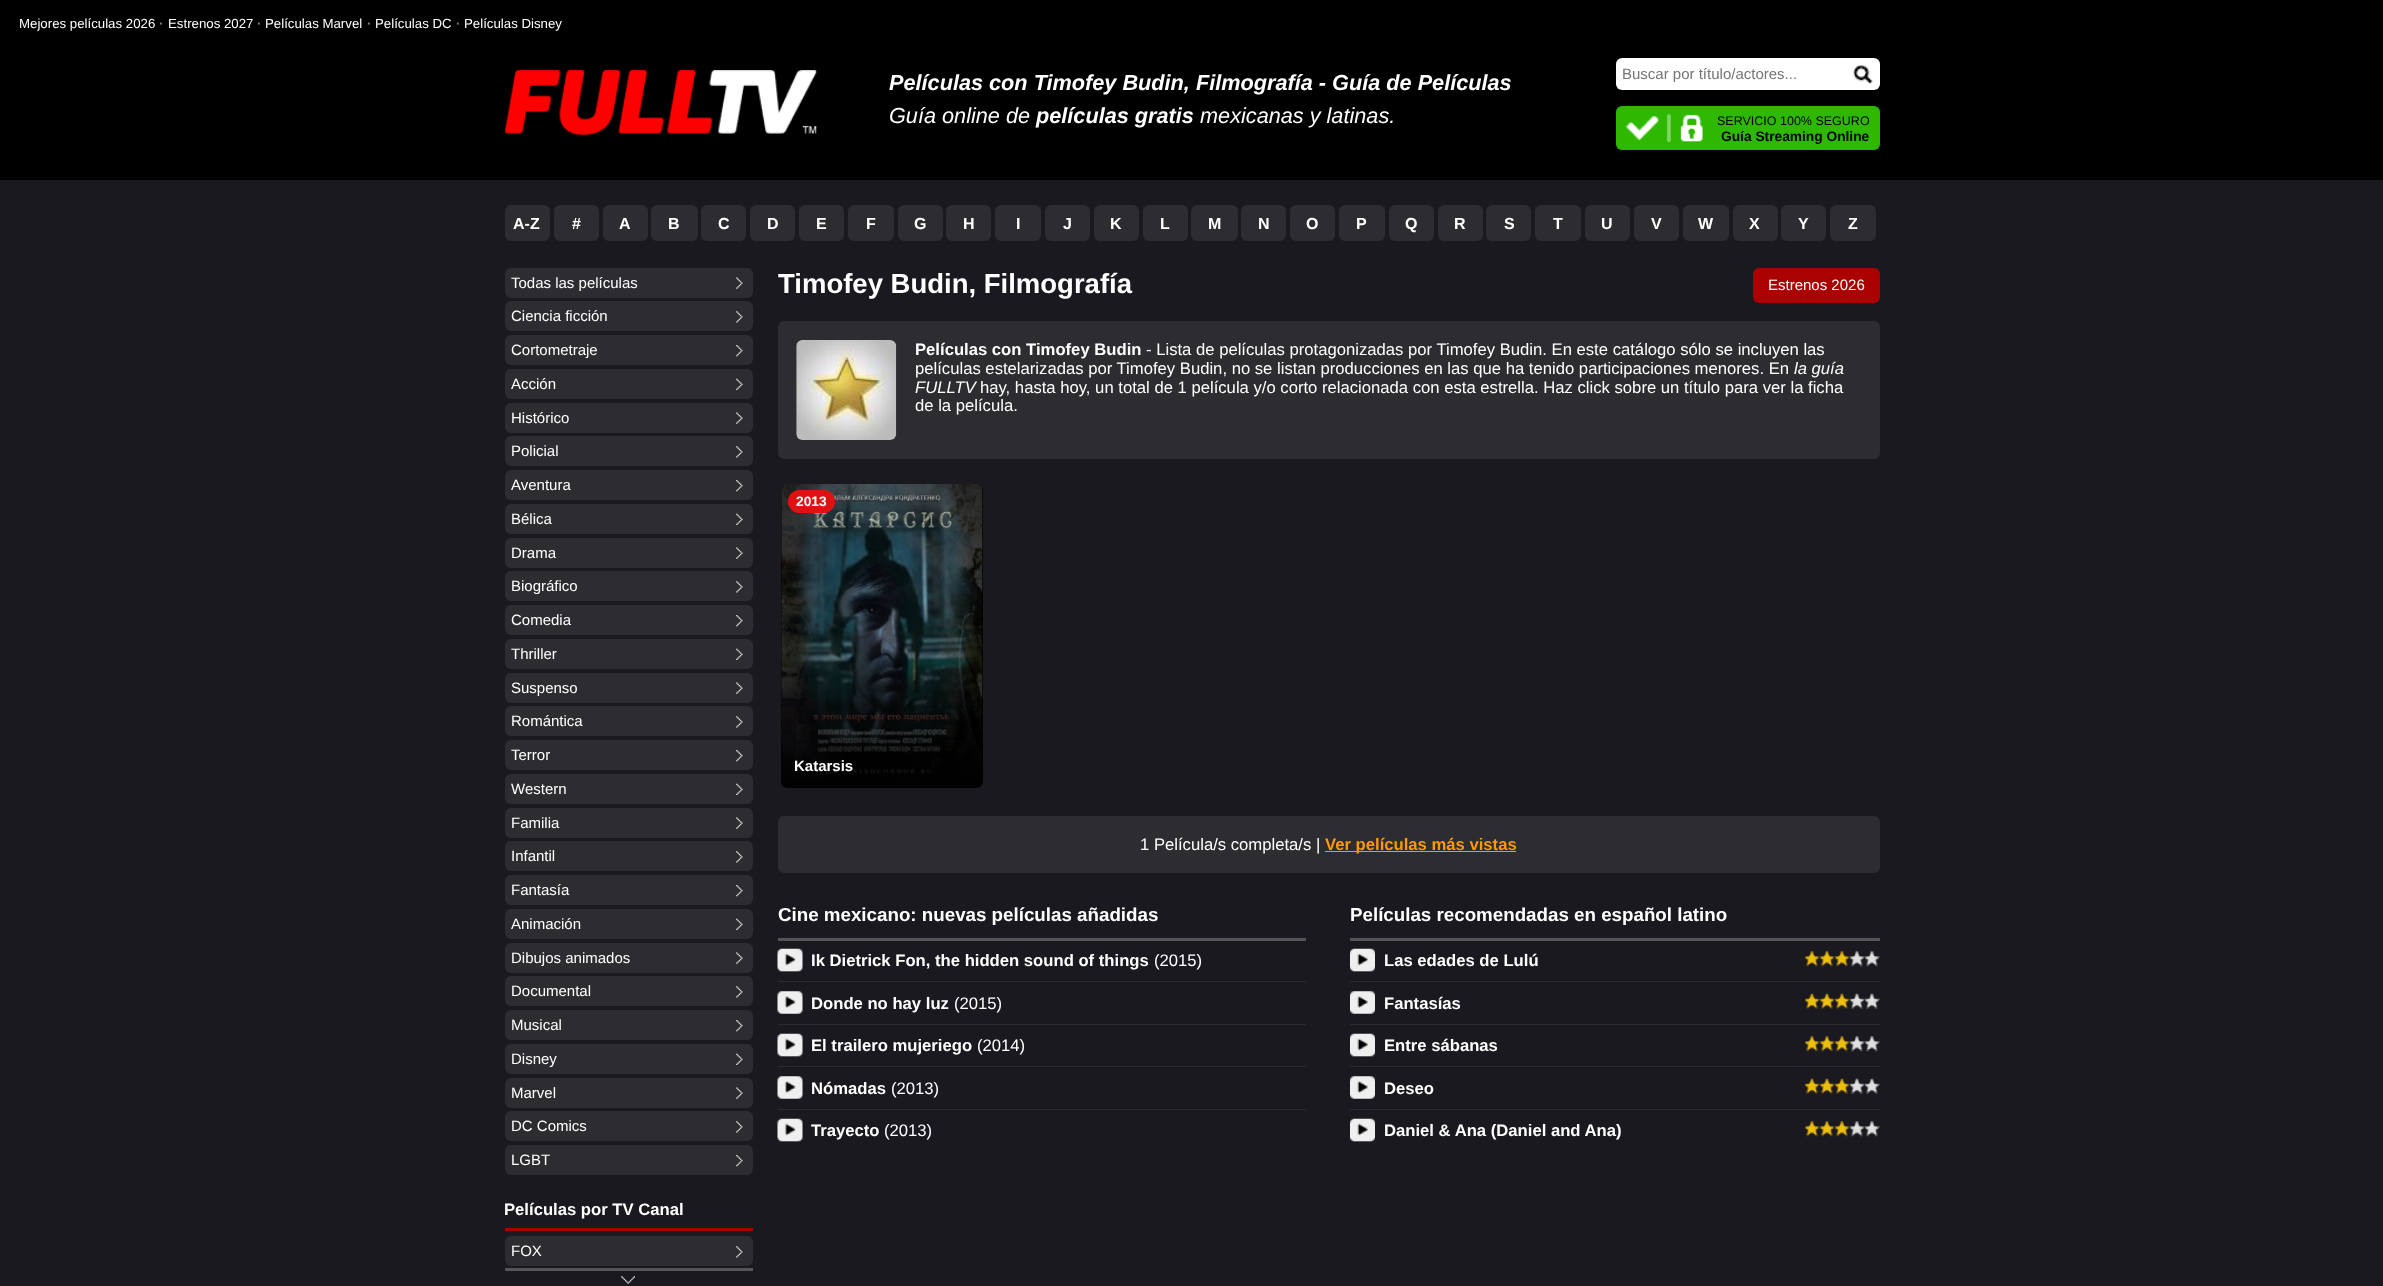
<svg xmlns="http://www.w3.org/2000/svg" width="2383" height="1286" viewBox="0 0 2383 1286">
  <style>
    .t1 { font: 13.25px Liberation Sans; fill: #fff; }
    .t2 { font: bold 13.25px Liberation Sans; fill: #808080; }
    .t3 { font: italic bold 21.7px Liberation Sans; fill: #fff; }
    .t4 { font: italic 21.7px Liberation Sans; fill: #fff; }
    .t5 { font: 15px Liberation Sans; fill: #757575; }
    .t6 { font: 12.5px Liberation Sans; fill: #000; }
    .t7 { font: bold 13.75px Liberation Sans; fill: #000; }
    .t8 { font: bold 16px Liberation Sans; fill: #fff; }
    .t9 { font: 15px Liberation Sans; fill: #fff; }
    .t10 { font: bold 16.67px Liberation Sans; fill: #fff; }
    .t11 { font: bold 27.5px Liberation Sans; fill: #fff; }
    .t12 { font: 16.67px Liberation Sans; fill: #fff; }
    .t13 { font: italic 16.67px Liberation Sans; fill: #fff; }
    .t14 { font: bold 13.75px Liberation Sans; fill: #fff; }
    .t15 { font: bold 15px Liberation Sans; fill: #fff; }
    .t16 { font: bold 16.67px Liberation Sans; fill: #f90; }
    .t17 { font: bold 18.75px Liberation Sans; fill: #fff; }
  </style>
  <defs>
    <clipPath id="clip1"><rect x="778" y="268" width="1102" height="35"/></clipPath>
    <linearGradient id="g1" gradientUnits="userSpaceOnUse" x1="882" y1="484" x2="882" y2="788"><stop offset="0.5" stop-color="#000" stop-opacity="0"/><stop offset="1" stop-color="#000"/></linearGradient>
  </defs>
  <rect width="100%" height="100%" fill="#1a191f"/>
  <rect x="0" y="0" width="2383" height="180" fill="#000"/>
  <text x="19" y="28" class="t1">Mejores películas 2026</text>
  <text x="159" y="28" class="t2">·</text>
  <text x="168" y="28" class="t1">Estrenos 2027</text>
  <text x="257" y="28" class="t2">·</text>
  <text x="265" y="28" class="t1">Películas Marvel</text>
  <text x="367" y="28" class="t2">·</text>
  <text x="375" y="28" class="t1">Películas DC</text>
  <text x="456" y="28" class="t2">·</text>
  <text x="464" y="28" class="t1">Películas Disney</text>
  <image x="505" y="70" width="312" height="65" href="images/1.png"/>
  <text x="889" y="90" class="t3">Películas con Timofey Budin, Filmografía - Guía de Películas</text>
  <text x="889" y="123" class="t4">Guía online de</text>
  <text x="1036" y="123" class="t3">películas gratis</text>
  <text x="1200" y="123" class="t4">mexicanas y latinas.</text>
  <rect x="1616" y="58" width="264" height="32" rx="6" fill="#fff"/>
  <text x="1622" y="79" class="t5">Buscar por título/actores...</text>
  <image x="1853" y="65" width="20" height="19" href="images/2.png"/>
  <rect x="1616" y="106" width="264" height="44" rx="6" fill="#2eb900"/>
  <image x="1626" y="113" width="77" height="30" href="images/3.png"/>
  <text x="1717" y="125" class="t6">SERVICIO 100% SEGURO</text>
  <text x="1721" y="141" class="t7">Guía Streaming Online</text>
  <rect x="505" y="205" width="45" height="36" rx="6" fill="#2d2c31"/>
  <text x="513" y="229" class="t8">A-Z</text>
  <rect x="554" y="205" width="45" height="36" rx="6" fill="#2d2c31"/>
  <text x="572" y="229" class="t8">#</text>
  <rect x="603" y="205" width="45" height="36" rx="6" fill="#2d2c31"/>
  <text x="619" y="229" class="t8">A</text>
  <rect x="651" y="205" width="47" height="36" rx="6" fill="#2d2c31"/>
  <text x="668" y="229" class="t8">B</text>
  <rect x="701" y="205" width="45" height="36" rx="6" fill="#2d2c31"/>
  <text x="718" y="229" class="t8">C</text>
  <rect x="750" y="205" width="45" height="36" rx="6" fill="#2d2c31"/>
  <text x="767" y="229" class="t8">D</text>
  <rect x="799" y="205" width="45" height="36" rx="6" fill="#2d2c31"/>
  <text x="816" y="229" class="t8">E</text>
  <rect x="848" y="205" width="46" height="36" rx="6" fill="#2d2c31"/>
  <text x="866" y="229" class="t8">F</text>
  <rect x="898" y="205" width="45" height="36" rx="6" fill="#2d2c31"/>
  <text x="914" y="229" class="t8">G</text>
  <rect x="946" y="205" width="45" height="36" rx="6" fill="#2d2c31"/>
  <text x="963" y="229" class="t8">H</text>
  <rect x="995" y="205" width="46" height="36" rx="6" fill="#2d2c31"/>
  <text x="1016" y="229" class="t8">I</text>
  <rect x="1045" y="205" width="45" height="36" rx="6" fill="#2d2c31"/>
  <text x="1063" y="229" class="t8">J</text>
  <rect x="1094" y="205" width="45" height="36" rx="6" fill="#2d2c31"/>
  <text x="1110" y="229" class="t8">K</text>
  <rect x="1143" y="205" width="45" height="36" rx="6" fill="#2d2c31"/>
  <text x="1160" y="229" class="t8">L</text>
  <rect x="1191" y="205" width="47" height="36" rx="6" fill="#2d2c31"/>
  <text x="1208" y="229" class="t8">M</text>
  <rect x="1241" y="205" width="45" height="36" rx="6" fill="#2d2c31"/>
  <text x="1258" y="229" class="t8">N</text>
  <rect x="1290" y="205" width="45" height="36" rx="6" fill="#2d2c31"/>
  <text x="1306" y="229" class="t8">O</text>
  <rect x="1339" y="205" width="46" height="36" rx="6" fill="#2d2c31"/>
  <text x="1356" y="229" class="t8">P</text>
  <rect x="1389" y="205" width="45" height="36" rx="6" fill="#2d2c31"/>
  <text x="1405" y="229" class="t8">Q</text>
  <rect x="1438" y="205" width="45" height="36" rx="6" fill="#2d2c31"/>
  <text x="1454" y="229" class="t8">R</text>
  <rect x="1486" y="205" width="45" height="36" rx="6" fill="#2d2c31"/>
  <text x="1504" y="229" class="t8">S</text>
  <rect x="1535" y="205" width="46" height="36" rx="6" fill="#2d2c31"/>
  <text x="1553" y="229" class="t8">T</text>
  <rect x="1585" y="205" width="45" height="36" rx="6" fill="#2d2c31"/>
  <text x="1601" y="229" class="t8">U</text>
  <rect x="1634" y="205" width="45" height="36" rx="6" fill="#2d2c31"/>
  <text x="1651" y="229" class="t8">V</text>
  <rect x="1683" y="205" width="46" height="36" rx="6" fill="#2d2c31"/>
  <text x="1698" y="229" class="t8">W</text>
  <rect x="1733" y="205" width="45" height="36" rx="6" fill="#2d2c31"/>
  <text x="1749" y="229" class="t8">X</text>
  <rect x="1781" y="205" width="45" height="36" rx="6" fill="#2d2c31"/>
  <text x="1798" y="229" class="t8">Y</text>
  <rect x="1830" y="205" width="46" height="36" rx="6" fill="#2d2c31"/>
  <text x="1848" y="229" class="t8">Z</text>
  <rect x="505" y="268" width="248" height="30" rx="6" fill="#2d2c31"/>
  <image x="736" y="277" width="7" height="12" href="images/4.png"/>
  <text x="511" y="288" class="t9">Todas las películas</text>
  <rect x="505" y="301" width="248" height="30" rx="6" fill="#2d2c31"/>
  <image x="736" y="311" width="7" height="12" href="images/5.png"/>
  <text x="511" y="321" class="t9">Ciencia ficción</text>
  <rect x="505" y="335" width="248" height="30" rx="6" fill="#2d2c31"/>
  <image x="736" y="345" width="7" height="12" href="images/6.png"/>
  <text x="511" y="355" class="t9">Cortometraje</text>
  <rect x="505" y="369" width="248" height="30" rx="6" fill="#2d2c31"/>
  <image x="736" y="378" width="7" height="12" href="images/7.png"/>
  <text x="511" y="389" class="t9">Acción</text>
  <rect x="505" y="403" width="248" height="30" rx="6" fill="#2d2c31"/>
  <image x="736" y="412" width="7" height="12" href="images/4.png"/>
  <text x="511" y="423" class="t9">Histórico</text>
  <rect x="505" y="436" width="248" height="30" rx="6" fill="#2d2c31"/>
  <image x="736" y="446" width="7" height="12" href="images/5.png"/>
  <text x="511" y="456" class="t9">Policial</text>
  <rect x="505" y="470" width="248" height="30" rx="6" fill="#2d2c31"/>
  <image x="736" y="480" width="7" height="12" href="images/6.png"/>
  <text x="511" y="490" class="t9">Aventura</text>
  <rect x="505" y="504" width="248" height="30" rx="6" fill="#2d2c31"/>
  <image x="736" y="513" width="7" height="12" href="images/7.png"/>
  <text x="511" y="524" class="t9">Bélica</text>
  <rect x="505" y="538" width="248" height="30" rx="6" fill="#2d2c31"/>
  <image x="736" y="547" width="7" height="12" href="images/4.png"/>
  <text x="511" y="558" class="t9">Drama</text>
  <rect x="505" y="571" width="248" height="30" rx="6" fill="#2d2c31"/>
  <image x="736" y="581" width="7" height="12" href="images/5.png"/>
  <text x="511" y="591" class="t9">Biográfico</text>
  <rect x="505" y="605" width="248" height="30" rx="6" fill="#2d2c31"/>
  <image x="736" y="615" width="7" height="12" href="images/6.png"/>
  <text x="511" y="625" class="t9">Comedia</text>
  <rect x="505" y="639" width="248" height="30" rx="6" fill="#2d2c31"/>
  <image x="736" y="648" width="7" height="12" href="images/7.png"/>
  <text x="511" y="659" class="t9">Thriller</text>
  <rect x="505" y="673" width="248" height="30" rx="6" fill="#2d2c31"/>
  <image x="736" y="682" width="7" height="12" href="images/4.png"/>
  <text x="511" y="693" class="t9">Suspenso</text>
  <rect x="505" y="706" width="248" height="30" rx="6" fill="#2d2c31"/>
  <image x="736" y="716" width="7" height="12" href="images/5.png"/>
  <text x="511" y="726" class="t9">Romántica</text>
  <rect x="505" y="740" width="248" height="30" rx="6" fill="#2d2c31"/>
  <image x="736" y="750" width="7" height="12" href="images/6.png"/>
  <text x="511" y="760" class="t9">Terror</text>
  <rect x="505" y="774" width="248" height="30" rx="6" fill="#2d2c31"/>
  <image x="736" y="783" width="7" height="12" href="images/7.png"/>
  <text x="511" y="794" class="t9">Western</text>
  <rect x="505" y="808" width="248" height="30" rx="6" fill="#2d2c31"/>
  <image x="736" y="817" width="7" height="12" href="images/4.png"/>
  <text x="511" y="828" class="t9">Familia</text>
  <rect x="505" y="841" width="248" height="30" rx="6" fill="#2d2c31"/>
  <image x="736" y="851" width="7" height="12" href="images/5.png"/>
  <text x="511" y="861" class="t9">Infantil</text>
  <rect x="505" y="875" width="248" height="30" rx="6" fill="#2d2c31"/>
  <image x="736" y="885" width="7" height="12" href="images/6.png"/>
  <text x="511" y="895" class="t9">Fantasía</text>
  <rect x="505" y="909" width="248" height="30" rx="6" fill="#2d2c31"/>
  <image x="736" y="918" width="7" height="12" href="images/7.png"/>
  <text x="511" y="929" class="t9">Animación</text>
  <rect x="505" y="943" width="248" height="30" rx="6" fill="#2d2c31"/>
  <image x="736" y="952" width="7" height="12" href="images/4.png"/>
  <text x="511" y="963" class="t9">Dibujos animados</text>
  <rect x="505" y="976" width="248" height="30" rx="6" fill="#2d2c31"/>
  <image x="736" y="986" width="7" height="12" href="images/5.png"/>
  <text x="511" y="996" class="t9">Documental</text>
  <rect x="505" y="1010" width="248" height="30" rx="6" fill="#2d2c31"/>
  <image x="736" y="1020" width="7" height="12" href="images/6.png"/>
  <text x="511" y="1030" class="t9">Musical</text>
  <rect x="505" y="1044" width="248" height="30" rx="6" fill="#2d2c31"/>
  <image x="736" y="1053" width="7" height="12" href="images/7.png"/>
  <text x="511" y="1064" class="t9">Disney</text>
  <rect x="505" y="1078" width="248" height="30" rx="6" fill="#2d2c31"/>
  <image x="736" y="1087" width="7" height="12" href="images/4.png"/>
  <text x="511" y="1098" class="t9">Marvel</text>
  <rect x="505" y="1111" width="248" height="30" rx="6" fill="#2d2c31"/>
  <image x="736" y="1121" width="7" height="12" href="images/5.png"/>
  <text x="511" y="1131" class="t9">DC Comics</text>
  <rect x="505" y="1145" width="248" height="30" rx="6" fill="#2d2c31"/>
  <image x="736" y="1155" width="7" height="12" href="images/6.png"/>
  <text x="511" y="1165" class="t9">LGBT</text>
  <rect x="505" y="1228" width="248" height="3" fill="#a00"/>
  <text x="504" y="1215" class="t10">Películas por TV Canal</text>
  <rect x="505" y="1236" width="248" height="30" rx="6" fill="#2d2c31"/>
  <image x="736" y="1246" width="7" height="12" href="images/5.png"/>
  <text x="511" y="1256" class="t9">FOX</text>
  <image x="621" y="1276" width="14" height="8" href="images/8.png"/>
  <rect x="505" y="1268" width="248" height="3" fill="#555"/>
  <g clip-path="url(#clip1)">
    <text x="778" y="293" class="t11">Timofey Budin, Filmografía</text>
  </g>
  <rect x="1753" y="268" width="127" height="35" rx="6" fill="#a00"/>
  <text x="1768" y="290" class="t9">Estrenos 2026</text>
  <rect x="778" y="321" width="1102" height="138" rx="6" fill="#2d2c31"/>
  <image x="796" y="340" width="101" height="100" href="images/9.png"/>
  <text x="915" y="355" class="t10">Películas con Timofey Budin</text>
  <text x="1146" y="355" class="t12">- Lista de películas protagonizadas por Timofey Budin. En este catálogo sólo se incluyen las</text>
  <text x="915" y="374" class="t12">películas estelarizadas por Timofey Budin, no se listan producciones en las que ha tenido participaciones menores. En</text>
  <text x="1794" y="374" class="t13">la guía</text>
  <text x="915" y="393" class="t13">FULLTV</text>
  <text x="980" y="393" class="t12">hay, hasta hoy, un total de 1 película y/o corto relacionada con esta estrella. Haz click sobre un título para ver la ficha</text>
  <text x="915" y="411" class="t12">de la película.</text>
  <rect x="781" y="484" width="202" height="304" rx="6" fill="#2d2c31"/>
  <rect x="781" y="484" width="202" height="300" rx="6" fill="#000"/>
  <image x="781" y="484" width="202" height="300" href="images/10.png"/>
  <rect x="781" y="484" width="202" height="304" rx="6" fill="url(#g1)"/>
  <rect x="788" y="490" width="47" height="23" rx="11.5" fill="#de1212"/>
  <text x="796" y="506" class="t14">2013</text>
  <text x="794" y="771" class="t15">Katarsis</text>
  <rect x="778" y="816" width="1102" height="57" rx="6" fill="#2d2c31"/>
  <text x="1140" y="850" class="t12">1 Película/s completa/s |</text>
  <rect x="1325" y="851" width="191" height="1" fill="#f90"/>
  <text x="1325" y="850" class="t16">Ver películas más vistas</text>
  <rect x="778" y="938" width="528" height="3" fill="#555"/>
  <text x="778" y="921" class="t17">Cine mexicano: nuevas películas añadidas</text>
  <rect x="778" y="981" width="528" height="1" fill="#2d2c31"/>
  <image x="777" y="948" width="26" height="24" href="images/11.png"/>
  <text x="811" y="966" class="t10">Ik Dietrick Fon, the hidden sound of things</text>
  <text x="1154" y="966" class="t12">(2015)</text>
  <rect x="778" y="1024" width="528" height="1" fill="#2d2c31"/>
  <image x="777" y="991" width="26" height="23" href="images/12.png"/>
  <text x="811" y="1009" class="t10">Donde no hay luz</text>
  <text x="954" y="1009" class="t12">(2015)</text>
  <rect x="778" y="1066" width="528" height="1" fill="#2d2c31"/>
  <image x="777" y="1033" width="26" height="24" href="images/11.png"/>
  <text x="811" y="1051" class="t10">El trailero mujeriego</text>
  <text x="977" y="1051" class="t12">(2014)</text>
  <rect x="778" y="1109" width="528" height="1" fill="#2d2c31"/>
  <image x="777" y="1076" width="26" height="23" href="images/12.png"/>
  <text x="811" y="1094" class="t10">Nómadas</text>
  <text x="891" y="1094" class="t12">(2013)</text>
  <image x="777" y="1118" width="26" height="24" href="images/11.png"/>
  <text x="811" y="1136" class="t10">Trayecto</text>
  <text x="884" y="1136" class="t12">(2013)</text>
  <rect x="1350" y="938" width="530" height="3" fill="#555"/>
  <text x="1350" y="921" class="t17">Películas recomendadas en español latino</text>
  <rect x="1350" y="981" width="530" height="1" fill="#2d2c31"/>
  <image x="1350" y="948" width="25" height="24" href="images/13.png"/>
  <text x="1384" y="966" class="t10">Las edades de Lulú</text>
  <image x="1805" y="951" width="75" height="16" href="images/14.png"/>
  <rect x="1350" y="1024" width="530" height="1" fill="#2d2c31"/>
  <image x="1350" y="991" width="25" height="23" href="images/15.png"/>
  <text x="1384" y="1009" class="t10">Fantasías</text>
  <image x="1805" y="993" width="75" height="16" href="images/16.png"/>
  <rect x="1350" y="1066" width="530" height="1" fill="#2d2c31"/>
  <image x="1350" y="1033" width="25" height="24" href="images/13.png"/>
  <text x="1384" y="1051" class="t10">Entre sábanas</text>
  <image x="1805" y="1036" width="75" height="16" href="images/14.png"/>
  <rect x="1350" y="1109" width="530" height="1" fill="#2d2c31"/>
  <image x="1350" y="1076" width="25" height="23" href="images/15.png"/>
  <text x="1384" y="1094" class="t10">Deseo</text>
  <image x="1805" y="1078" width="75" height="16" href="images/16.png"/>
  <image x="1350" y="1118" width="25" height="24" href="images/13.png"/>
  <text x="1384" y="1136" class="t10">Daniel &amp; Ana (Daniel and Ana)</text>
  <image x="1805" y="1121" width="75" height="16" href="images/14.png"/>
</svg>
